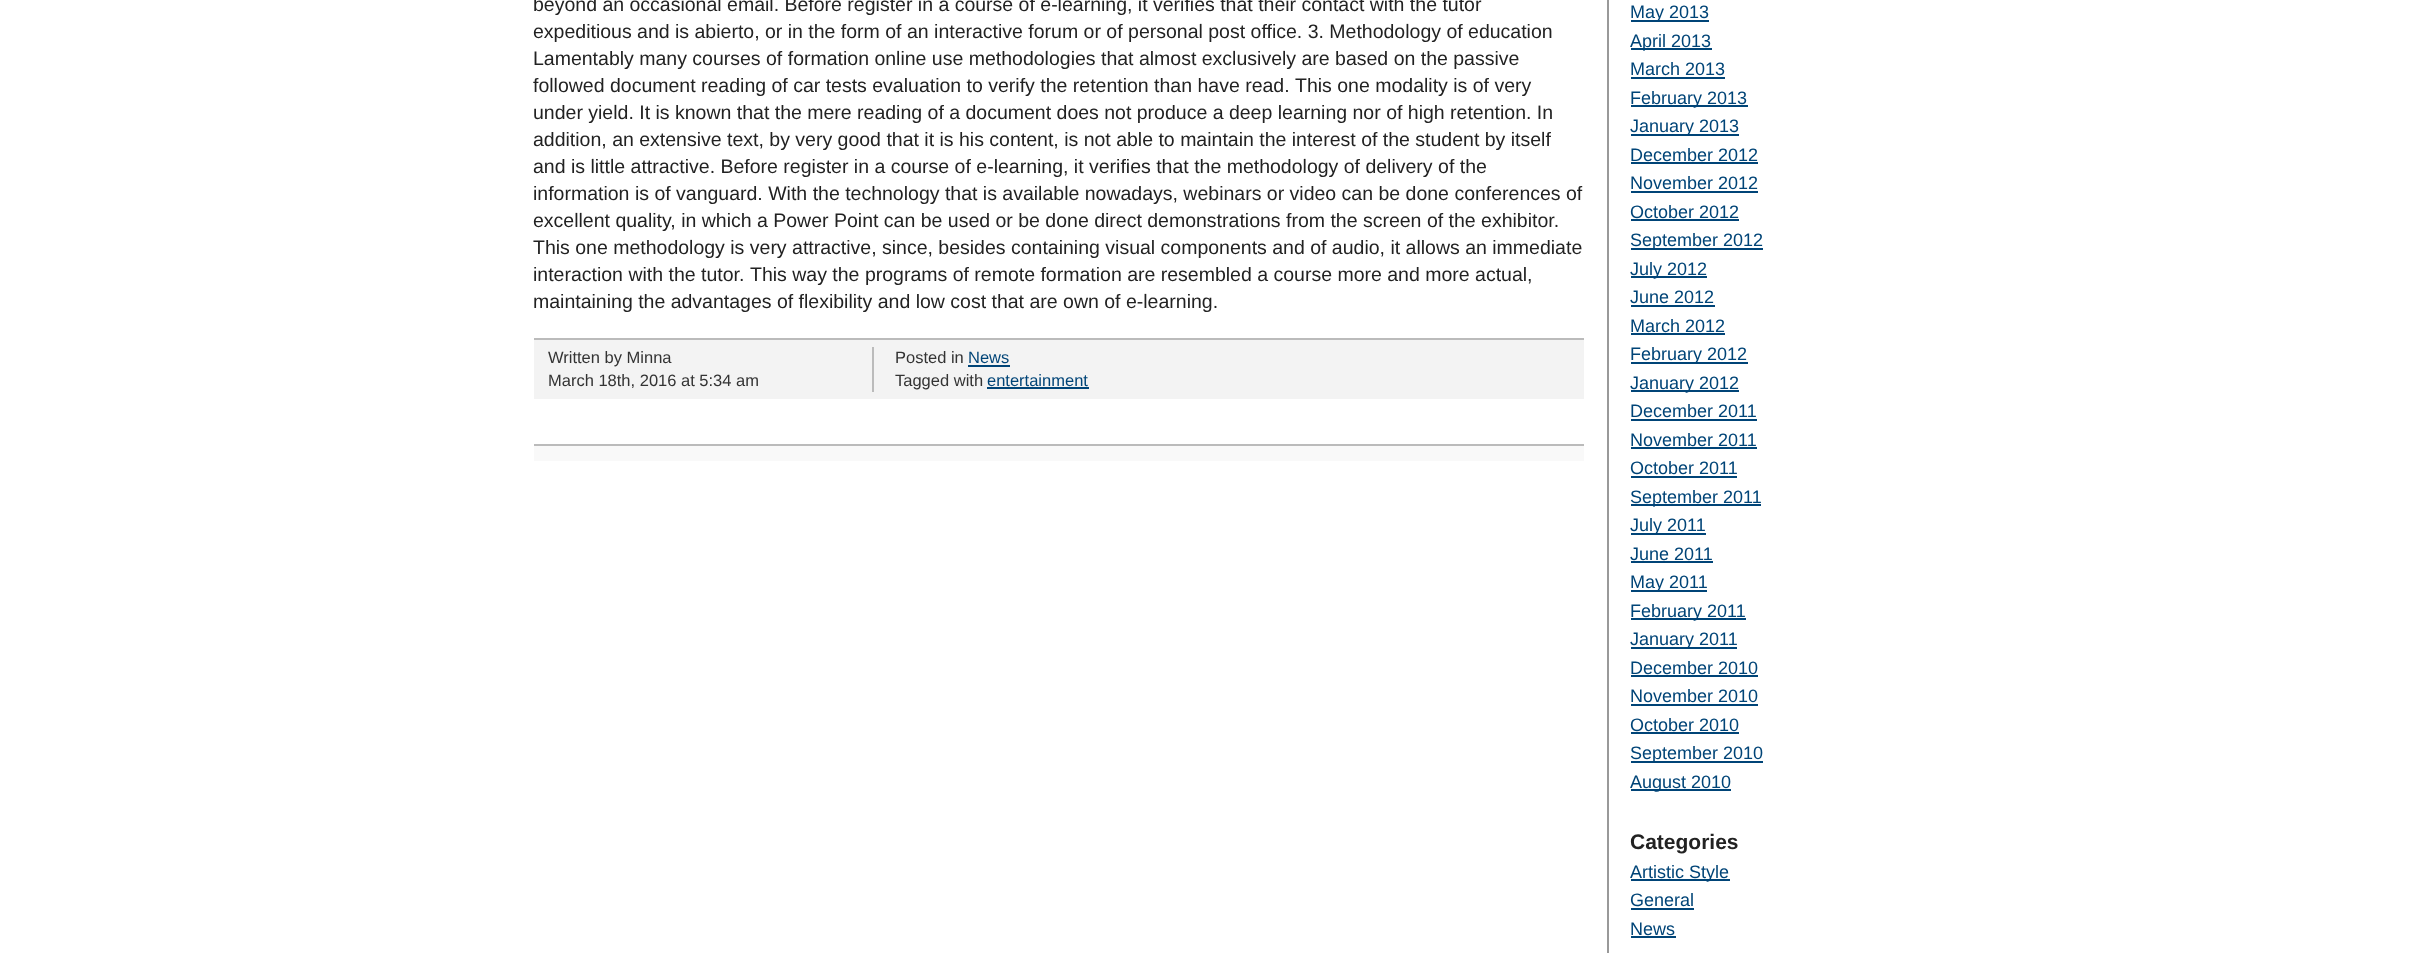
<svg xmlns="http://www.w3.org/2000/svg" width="2432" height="953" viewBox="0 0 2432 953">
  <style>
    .t1 { font: 19.5px Liberation Sans; fill: #222; }
    .t2 { font: 16.5px Liberation Sans; fill: #333; }
    .t3 { font: 16.5px Liberation Sans; fill: #047; }
    .t4 { font: 18px Liberation Sans; fill: #047; }
    .t5 { font: bold 21px Liberation Sans; fill: #222; }
  </style>
  <rect width="100%" height="100%" fill="#fff"/>
  <text x="533" y="11" class="t1">beyond an occasional email. Before register in a course of e-learning, it verifies that their contact with the tutor</text>
  <text x="533" y="38" class="t1">expeditious and is abierto, or in the form of an interactive forum or of personal post office. 3. Methodology of education</text>
  <text x="533" y="65" class="t1">Lamentably many courses of formation online use methodologies that almost exclusively are based on the passive</text>
  <text x="533" y="92" class="t1">followed document reading of car tests evaluation to verify the retention than have read.</text>
  <text x="1295" y="92" class="t1">This one modality is of very</text>
  <text x="533" y="119" class="t1">under yield. It is known that the mere reading of a document does not produce a deep learning nor of high retention. In</text>
  <text x="533" y="146" class="t1">addition, an extensive text, by very good that it is his content, is not able to maintain the interest of the student by itself</text>
  <text x="533" y="173" class="t1">and is little attractive. Before register in a course of e-learning, it verifies that the methodology of delivery of the</text>
  <text x="533" y="200" class="t1">information is of vanguard. With the technology that is available nowadays, webinars or video can be done conferences of</text>
  <text x="533" y="227" class="t1">excellent quality, in which a Power Point can be used or be done direct demonstrations from the screen of the exhibitor.</text>
  <text x="533" y="254" class="t1">This one methodology is very attractive, since, besides containing visual components and of audio, it allows an immediate</text>
  <text x="533" y="281" class="t1">interaction with the tutor.</text>
  <text x="750" y="281" class="t1">This way the programs of remote formation are resembled a course more and more actual,</text>
  <text x="533" y="308" class="t1">maintaining the advantages of flexibility and low cost that are own of e-learning.</text>
  <rect x="534" y="340" width="1050" height="59" fill="#f3f3f3"/>
  <rect x="534" y="338" width="1050" height="2" fill="#bbb"/>
  <rect x="872" y="347" width="2" height="45" fill="#bbb"/>
  <text x="548" y="363" class="t2">Written by Minna</text>
  <text x="548" y="386" class="t2">March 18th, 2016 at 5:34 am</text>
  <text x="895" y="363" class="t2">Posted in</text>
  <text x="968" y="363" class="t3">News</text>
  <rect x="968" y="365" width="42" height="2" fill="#047"/>
  <text x="895" y="386" class="t2">Tagged with</text>
  <text x="987" y="386" class="t3">entertainment</text>
  <rect x="987" y="387" width="102" height="2" fill="#047"/>
  <rect x="534" y="446" width="1050" height="15" fill="#f9f9f9"/>
  <rect x="534" y="444" width="1050" height="2" fill="#bbb"/>
  <rect x="1607" y="0" width="2" height="953" fill="#999"/>
  <rect x="1631" y="20" width="78" height="2" fill="#047"/>
  <text x="1630" y="18" class="t4">May 2013</text>
  <rect x="1631" y="48" width="81" height="2" fill="#047"/>
  <text x="1630" y="47" class="t4">April 2013</text>
  <text x="1630" y="75" class="t4">March 2013</text>
  <rect x="1631" y="77" width="94" height="2" fill="#047"/>
  <rect x="1631" y="105" width="117" height="2" fill="#047"/>
  <text x="1630" y="104" class="t4">February 2013</text>
  <rect x="1631" y="134" width="108" height="2" fill="#047"/>
  <text x="1630" y="132" class="t4">January 2013</text>
  <text x="1630" y="161" class="t4">December 2012</text>
  <rect x="1631" y="162" width="127" height="2" fill="#047"/>
  <text x="1630" y="189" class="t4">November 2012</text>
  <rect x="1631" y="191" width="127" height="2" fill="#047"/>
  <text x="1630" y="218" class="t4">October 2012</text>
  <rect x="1631" y="219" width="108" height="2" fill="#047"/>
  <rect x="1631" y="248" width="132" height="2" fill="#047"/>
  <text x="1630" y="246" class="t4">September 2012</text>
  <rect x="1631" y="276" width="76" height="2" fill="#047"/>
  <text x="1630" y="275" class="t4">July 2012</text>
  <text x="1630" y="303" class="t4">June 2012</text>
  <rect x="1631" y="305" width="84" height="2" fill="#047"/>
  <text x="1630" y="332" class="t4">March 2012</text>
  <rect x="1631" y="333" width="94" height="2" fill="#047"/>
  <rect x="1631" y="362" width="117" height="2" fill="#047"/>
  <text x="1630" y="360" class="t4">February 2012</text>
  <rect x="1631" y="390" width="108" height="2" fill="#047"/>
  <text x="1630" y="389" class="t4">January 2012</text>
  <text x="1630" y="417" class="t4">December 2011</text>
  <rect x="1631" y="419" width="126" height="2" fill="#047"/>
  <text x="1630" y="446" class="t4">November 2011</text>
  <rect x="1631" y="447" width="126" height="2" fill="#047"/>
  <text x="1630" y="474" class="t4">October 2011</text>
  <rect x="1631" y="476" width="106" height="2" fill="#047"/>
  <rect x="1631" y="504" width="130" height="2" fill="#047"/>
  <text x="1630" y="503" class="t4">September 2011</text>
  <rect x="1631" y="533" width="75" height="2" fill="#047"/>
  <text x="1630" y="531" class="t4">July 2011</text>
  <text x="1630" y="560" class="t4">June 2011</text>
  <rect x="1631" y="561" width="82" height="2" fill="#047"/>
  <rect x="1631" y="590" width="76" height="2" fill="#047"/>
  <text x="1630" y="588" class="t4">May 2011</text>
  <rect x="1631" y="618" width="115" height="2" fill="#047"/>
  <text x="1630" y="617" class="t4">February 2011</text>
  <rect x="1631" y="647" width="106" height="2" fill="#047"/>
  <text x="1630" y="645" class="t4">January 2011</text>
  <text x="1630" y="674" class="t4">December 2010</text>
  <rect x="1631" y="675" width="127" height="2" fill="#047"/>
  <text x="1630" y="702" class="t4">November 2010</text>
  <rect x="1631" y="704" width="127" height="2" fill="#047"/>
  <text x="1630" y="731" class="t4">October 2010</text>
  <rect x="1631" y="732" width="108" height="2" fill="#047"/>
  <rect x="1631" y="761" width="132" height="2" fill="#047"/>
  <text x="1630" y="759" class="t4">September 2010</text>
  <rect x="1631" y="789" width="100" height="2" fill="#047"/>
  <text x="1630" y="788" class="t4">August 2010</text>
  <text x="1630" y="849" class="t5">Categories</text>
  <rect x="1631" y="879" width="99" height="2" fill="#047"/>
  <text x="1630" y="878" class="t4">Artistic Style</text>
  <text x="1630" y="906" class="t4">General</text>
  <rect x="1631" y="908" width="63" height="2" fill="#047"/>
  <text x="1630" y="935" class="t4">News</text>
  <rect x="1631" y="936" width="45" height="2" fill="#047"/>
</svg>
